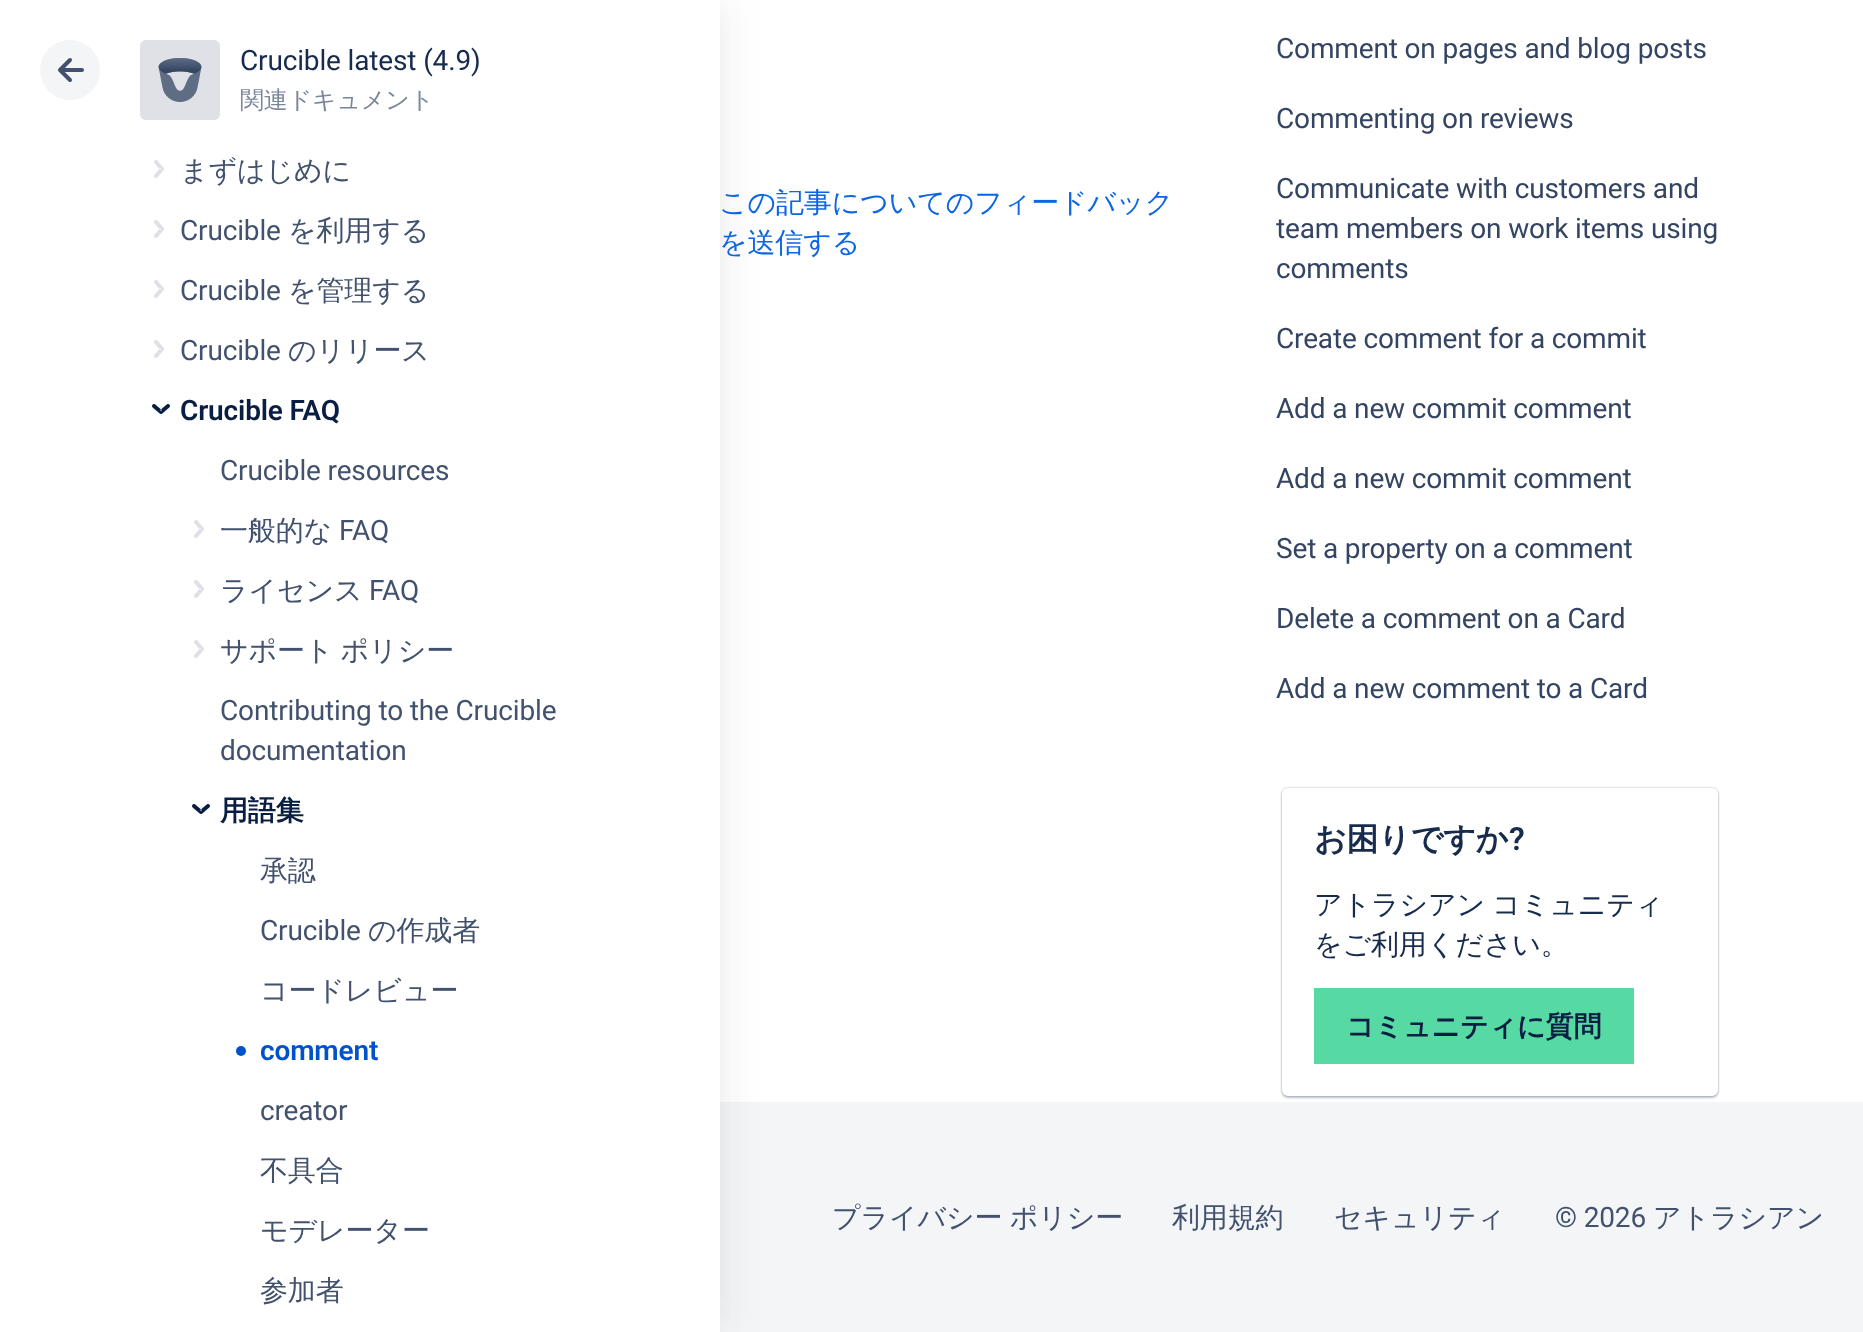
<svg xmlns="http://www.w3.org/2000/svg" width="1863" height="1332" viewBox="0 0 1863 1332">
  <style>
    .t1 { font: 28px Roboto; letter-spacing: -0.15px; fill: #172b4d; }
    .t2 { font: 500 24px WenQuanYi Zen Hei; letter-spacing: -0.15px; fill: #7a869a; }
    .t3 { font: 500 28px WenQuanYi Zen Hei; letter-spacing: -0.15px; fill: #42526e; }
    .t4 { font: 28px Roboto; letter-spacing: -0.15px; fill: #42526e; }
    .t5 { font: 600 28px Roboto; letter-spacing: -0.15px; fill: #091e42; }
    .t6 { font: bold 28px WenQuanYi Zen Hei; letter-spacing: -0.15px; fill: #091e42; }
    .t7 { font: 600 28px Roboto; letter-spacing: -0.15px; fill: #0052cc; }
    .t8 { font: 500 28px WenQuanYi Zen Hei; letter-spacing: -0.15px; fill: #0c66e4; }
    .t9 { font: 28px Roboto; letter-spacing: -0.15px; fill: #344563; }
    .t10 { font: bold 32px WenQuanYi Zen Hei; letter-spacing: -0.25px; fill: #172b4d; }
    .t11 { font: 600 32px Roboto; letter-spacing: -0.25px; fill: #172b4d; }
    .t12 { font: 500 28px WenQuanYi Zen Hei; letter-spacing: -0.15px; fill: #172b4d; }
  </style>
  <rect width="100%" height="100%" fill="#fff"/>
  <rect x="720" y="1102" width="1143" height="230" fill="#f4f5f7"/>
  <rect x="0" y="0" width="720" height="1332" fill="#1616161a" filter="blur(20px)"/>
  <rect x="0" y="0" width="720" height="1332" fill="#fff"/>
  <circle cx="70" cy="70" r="30" fill="#f4f5f7"/>
  <rect x="60" y="68" width="24" height="4" rx="2" fill="#42526e"/>
  <path d="M70 80L60 70L70 60" fill="none" stroke="#42526e" stroke-width="4" stroke-linecap="round" stroke-linejoin="round"/>
  <rect x="140" y="40" width="80" height="80" rx="6" fill="#dfe1e6"/>
  <image x="158" y="58" width="44" height="44" href="images/1.png"/>
  <text x="240" y="70" class="t1">Crucible latest (4.9)</text>
  <text x="240" y="108" class="t2">関連ドキュメント</text>
  <image x="154" y="160" width="10" height="18" href="images/2.png"/>
  <text x="180" y="180" class="t3">まずはじめに</text>
  <image x="154" y="220" width="10" height="18" href="images/2.png"/>
  <text x="180" y="240" class="t4">Crucible</text>
  <text x="288" y="240" class="t3">を利用する</text>
  <image x="154" y="280" width="10" height="18" href="images/2.png"/>
  <text x="180" y="300" class="t4">Crucible</text>
  <text x="288" y="300" class="t3">を管理する</text>
  <image x="154" y="340" width="10" height="18" href="images/2.png"/>
  <text x="180" y="360" class="t4">Crucible</text>
  <text x="288" y="360" class="t3">のリリース</text>
  <image x="152" y="404" width="18" height="10" href="images/3.png"/>
  <text x="180" y="420" class="t5">Crucible FAQ</text>
  <text x="220" y="480" class="t4">Crucible resources</text>
  <image x="194" y="520" width="10" height="18" href="images/2.png"/>
  <text x="220" y="540" class="t3">一般的な</text>
  <text x="339" y="540" class="t4">FAQ</text>
  <image x="194" y="580" width="10" height="18" href="images/2.png"/>
  <text x="220" y="600" class="t3">ライセンス</text>
  <text x="369" y="600" class="t4">FAQ</text>
  <image x="194" y="640" width="10" height="18" href="images/2.png"/>
  <text x="220" y="660" word-spacing="-1" class="t3">サポート ポリシー</text>
  <text x="220" y="720" class="t4">Contributing to the Crucible</text>
  <text x="220" y="760" class="t4">documentation</text>
  <image x="192" y="804" width="18" height="10" href="images/3.png"/>
  <text x="220" y="820" class="t6">用語集</text>
  <text x="260" y="880" class="t3">承認</text>
  <text x="260" y="940" class="t4">Crucible</text>
  <text x="368" y="940" class="t3">の作成者</text>
  <text x="260" y="1000" class="t3">コードレビュー</text>
  <circle cx="241" cy="1051" r="5" fill="#0052cc"/>
  <text x="260" y="1060" class="t7">comment</text>
  <text x="260" y="1120" class="t4">creator</text>
  <text x="260" y="1180" class="t3">不具合</text>
  <text x="260" y="1240" class="t3">モデレーター</text>
  <text x="260" y="1300" class="t3">参加者</text>
  <text x="719" y="212" class="t8">この記事についてのフィードバック</text>
  <text x="719" y="252" class="t8">を送信する</text>
  <text x="1276" y="58" class="t9">Comment on pages and blog posts</text>
  <text x="1276" y="128" class="t9">Commenting on reviews</text>
  <text x="1276" y="198" class="t9">Communicate with customers and</text>
  <text x="1276" y="238" class="t9">team members on work items using</text>
  <text x="1276" y="278" class="t9">comments</text>
  <text x="1276" y="348" class="t9">Create comment for a commit</text>
  <text x="1276" y="418" class="t9">Add a new commit comment</text>
  <text x="1276" y="488" class="t9">Add a new commit comment</text>
  <text x="1276" y="558" class="t9">Set a property on a comment</text>
  <text x="1276" y="628" class="t9">Delete a comment on a Card</text>
  <text x="1276" y="698" class="t9">Add a new comment to a Card</text>
  <rect x="1282" y="788" width="436" height="308" rx="6" fill="#091e424f" filter="blur(1px)"/>
  <rect x="1282" y="790" width="436" height="308" rx="6" fill="#091e4240" filter="blur(1px)"/>
  <rect x="1282" y="788" width="436" height="308" rx="6" fill="#fff"/>
  <text x="1314" y="850" class="t10">お困りですか</text>
  <text x="1509" y="850" class="t11">?</text>
  <text x="1314" y="914" word-spacing="-1" class="t12">アトラシアン コミュニティ</text>
  <text x="1314" y="954" class="t12">をご利用ください。</text>
  <rect x="1314" y="988" width="320" height="76" fill="#57d9a3"/>
  <text x="1346" y="1036" class="t6">コミュニティに質問</text>
  <text x="832" y="1227" word-spacing="-1" class="t3">プライバシー ポリシー</text>
  <text x="1172" y="1227" class="t3">利用規約</text>
  <text x="1334" y="1227" class="t3">セキュリティ</text>
  <text x="1555" y="1227" class="t4">© 2026</text>
  <text x="1653" y="1227" class="t3">アトラシアン</text>
</svg>
